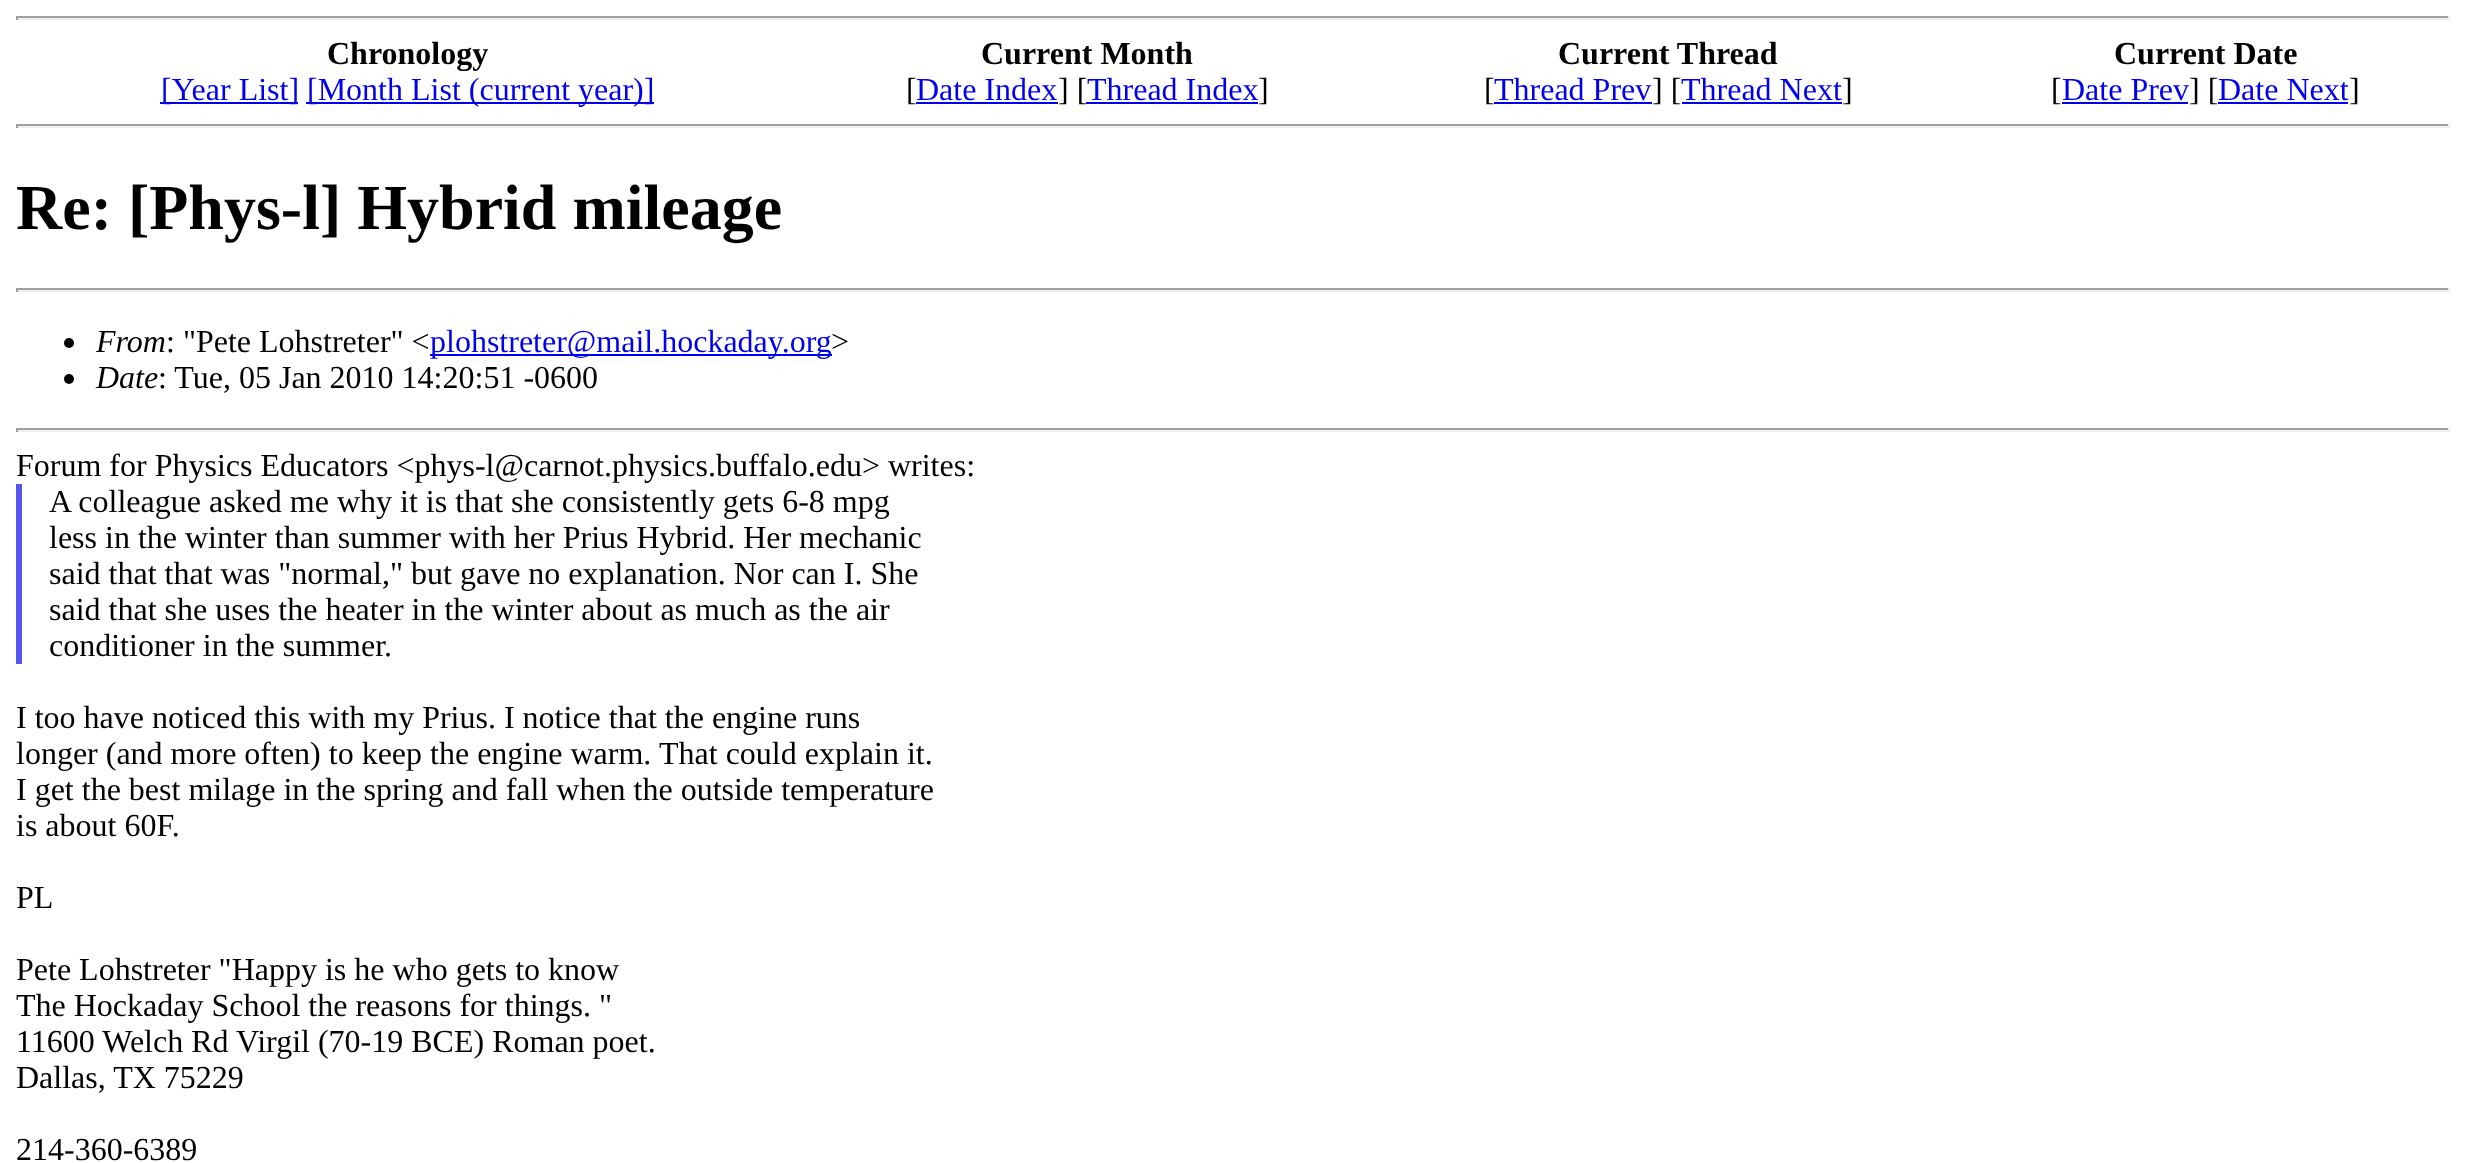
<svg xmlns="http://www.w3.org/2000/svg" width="2466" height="1163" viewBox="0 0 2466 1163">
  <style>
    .t1 { font: bold 32px Liberation Serif; fill: #000; }
    .t2 { font: 32px Liberation Serif; fill: #00e; }
    .t3 { font: 32px Liberation Serif; fill: #000; }
    .t4 { font: bold 64px Liberation Serif; fill: #000; }
    .t5 { font: italic 32px Liberation Serif; fill: #000; }
  </style>
  <rect width="100%" height="100%" fill="#fff"/>
  <rect x="16" y="16" width="2434" height="2" fill="#9f9f9f"/>
  <rect x="2448" y="16" width="2" height="4" fill="#eee"/>
  <rect x="16" y="18" width="2434" height="2" fill="#eee"/>
  <rect x="16" y="16" width="2" height="4" fill="#9f9f9f"/>
  <text x="327" y="64" class="t1">Chronology</text>
  <text x="981" y="64" class="t1">Current Month</text>
  <text x="1558" y="64" class="t1">Current Thread</text>
  <text x="2114" y="64" class="t1">Current Date</text>
  <rect x="160" y="102" width="138" height="2" fill="#00e"/>
  <text x="161" y="100" class="t2">[Year List]</text>
  <rect x="306" y="102" width="348" height="2" fill="#00e"/>
  <text x="307" y="100" class="t2">[Month List (current year)]</text>
  <text x="906" y="100" class="t3">[</text>
  <text x="916" y="100" class="t2">Date Index</text>
  <rect x="916" y="102" width="142" height="2" fill="#00e"/>
  <text x="1058" y="100" class="t3">] [</text>
  <text x="1087" y="100" class="t2">Thread Index</text>
  <rect x="1086" y="102" width="172" height="2" fill="#00e"/>
  <text x="1258" y="100" class="t3">]</text>
  <text x="1484" y="100" class="t3">[</text>
  <text x="1494" y="100" class="t2">Thread Prev</text>
  <rect x="1494" y="102" width="158" height="2" fill="#00e"/>
  <text x="1652" y="100" class="t3">] [</text>
  <text x="1681" y="100" class="t2">Thread Next</text>
  <rect x="1682" y="102" width="160" height="2" fill="#00e"/>
  <text x="1842" y="100" class="t3">]</text>
  <text x="2051" y="100" class="t3">[</text>
  <text x="2062" y="100" class="t2">Date Prev</text>
  <rect x="2062" y="102" width="126" height="2" fill="#00e"/>
  <text x="2189" y="100" class="t3">] [</text>
  <text x="2218" y="100" class="t2">Date Next</text>
  <rect x="2218" y="102" width="130" height="2" fill="#00e"/>
  <text x="2349" y="100" class="t3">]</text>
  <rect x="16" y="124" width="2434" height="2" fill="#9f9f9f"/>
  <rect x="2448" y="124" width="2" height="4" fill="#eee"/>
  <rect x="16" y="126" width="2434" height="2" fill="#eee"/>
  <rect x="16" y="124" width="2" height="4" fill="#9f9f9f"/>
  <text x="16" y="229" class="t4">Re: [Phys-l] Hybrid mileage</text>
  <rect x="16" y="288" width="2434" height="2" fill="#9f9f9f"/>
  <rect x="2448" y="288" width="2" height="4" fill="#eee"/>
  <rect x="16" y="290" width="2434" height="2" fill="#eee"/>
  <rect x="16" y="288" width="2" height="4" fill="#9f9f9f"/>
  <circle cx="69" cy="343" r="5" fill="#000"/>
  <text x="96" y="352" class="t5">From</text>
  <text x="166" y="352" class="t3">: "Pete Lohstreter" &lt;</text>
  <rect x="430" y="354" width="402" height="2" fill="#00e"/>
  <text x="430" y="352" class="t2">plohstreter@mail.hockaday.org</text>
  <text x="831" y="352" class="t3">&gt;</text>
  <circle cx="69" cy="379" r="5" fill="#000"/>
  <text x="96" y="388" class="t5">Date</text>
  <text x="158" y="388" class="t3">: Tue, 05 Jan 2010 14:20:51 -0600</text>
  <rect x="16" y="428" width="2434" height="2" fill="#9f9f9f"/>
  <rect x="2448" y="428" width="2" height="4" fill="#eee"/>
  <rect x="16" y="430" width="2434" height="2" fill="#eee"/>
  <rect x="16" y="428" width="2" height="4" fill="#9f9f9f"/>
  <text x="16" y="476" class="t3">Forum for Physics Educators &lt;phys-l@carnot.physics.buffalo.edu&gt; writes:</text>
  <rect x="16" y="484" width="6" height="180" fill="#55e"/>
  <text x="49" y="512" class="t3">A colleague asked me why it is that she consistently gets 6-8 mpg</text>
  <text x="49" y="548" class="t3">less in the winter than summer with her Prius Hybrid. Her mechanic</text>
  <text x="49" y="584" class="t3">said that that was "normal," but gave no explanation. Nor can I. She</text>
  <text x="49" y="620" class="t3">said that she uses the heater in the winter about as much as the air</text>
  <text x="49" y="656" class="t3">conditioner in the summer.</text>
  <text x="16" y="728" class="t3">I too have noticed this with my Prius. I notice that the engine runs</text>
  <text x="16" y="764" class="t3">longer (and more often) to keep the engine warm.</text>
  <text x="659" y="764" class="t3">That could explain it.</text>
  <text x="16" y="800" class="t3">I get the best milage in the spring and fall when the outside temperature</text>
  <text x="16" y="836" class="t3">is about 60F.</text>
  <text x="16" y="908" class="t3">PL</text>
  <text x="16" y="980" class="t3">Pete Lohstreter "Happy is he who gets to know</text>
  <text x="16" y="1016" class="t3">The Hockaday School the reasons for things. "</text>
  <text x="16" y="1052" class="t3">11600 Welch Rd</text>
  <text x="236" y="1052" class="t3">Virgil (70-19 BCE) Roman poet.</text>
  <text x="16" y="1088" class="t3">Dallas, TX 75229</text>
  <text x="16" y="1160" class="t3">214-360-6389</text>
</svg>
